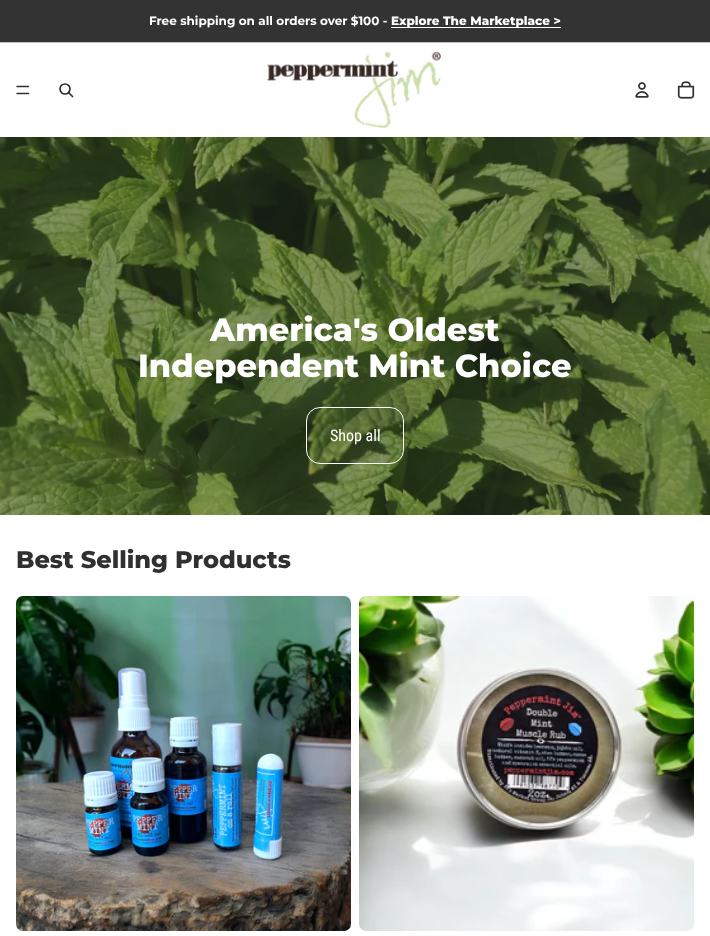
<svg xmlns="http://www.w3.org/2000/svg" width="710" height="936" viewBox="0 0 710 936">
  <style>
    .t1 { font: bold 12px Montserrat; fill: #fff; }
    .t2 { font: 800 12px Montserrat; fill: #fff; }
    .t3 { font: 800 32px Montserrat; fill: #fff; }
    .t4 { font: 16px Roboto Condensed; fill: #fff; }
    .t5 { font: 800 24px Montserrat; fill: #303030; }
  </style>
  <rect width="100%" height="100%" fill="#fff"/>
  <rect x="0" y="0" width="710" height="42" fill="#333"/>
  <rect x="0" y="42" width="710" height="1" fill="#c0c0c0"/>
  <text x="149" y="25" class="t1">Free shipping on all orders over $100 -</text>
  <rect x="391" y="27" width="170" height="1" fill="#fff"/>
  <text x="391" y="25" class="t2">Explore The Marketplace &gt;</text>
  <path d="M17 86.5H28.5M17 93.5H28.5" fill="none" stroke="#303030" stroke-width="1.5" stroke-linecap="round"/>
  <circle cx="65" cy="89" r="5" fill="none" stroke="#303030" stroke-width="1.7"/>
  <path d="M69 93L72.5 96.5" fill="none" stroke="#000000cf" stroke-width="1.7" stroke-linecap="round" stroke-linejoin="round"/>
  <image x="267" y="51" width="174" height="78" href="images/1.png"/>
  <image x="635" y="82" width="14" height="16" href="images/2.png"/>
  <image x="677" y="81" width="18" height="18" href="images/3.png"/>
  <image x="0" y="137" width="710" height="378" href="images/4.png"/>
  <text x="210" y="341" class="t3">America's Oldest</text>
  <text x="138" y="377" class="t3">Independent Mint Choice</text>
  <rect x="306.5" y="407.5" width="97" height="56" rx="13.5" fill="none" stroke="#fff"/>
  <text x="330" y="441" class="t4">Shop all</text>
  <text x="16" y="568" class="t5">Best Selling Products</text>
  <image x="16" y="596" width="335" height="335" href="images/5.png"/>
  <image x="359" y="596" width="335" height="335" href="images/6.png"/>
</svg>
